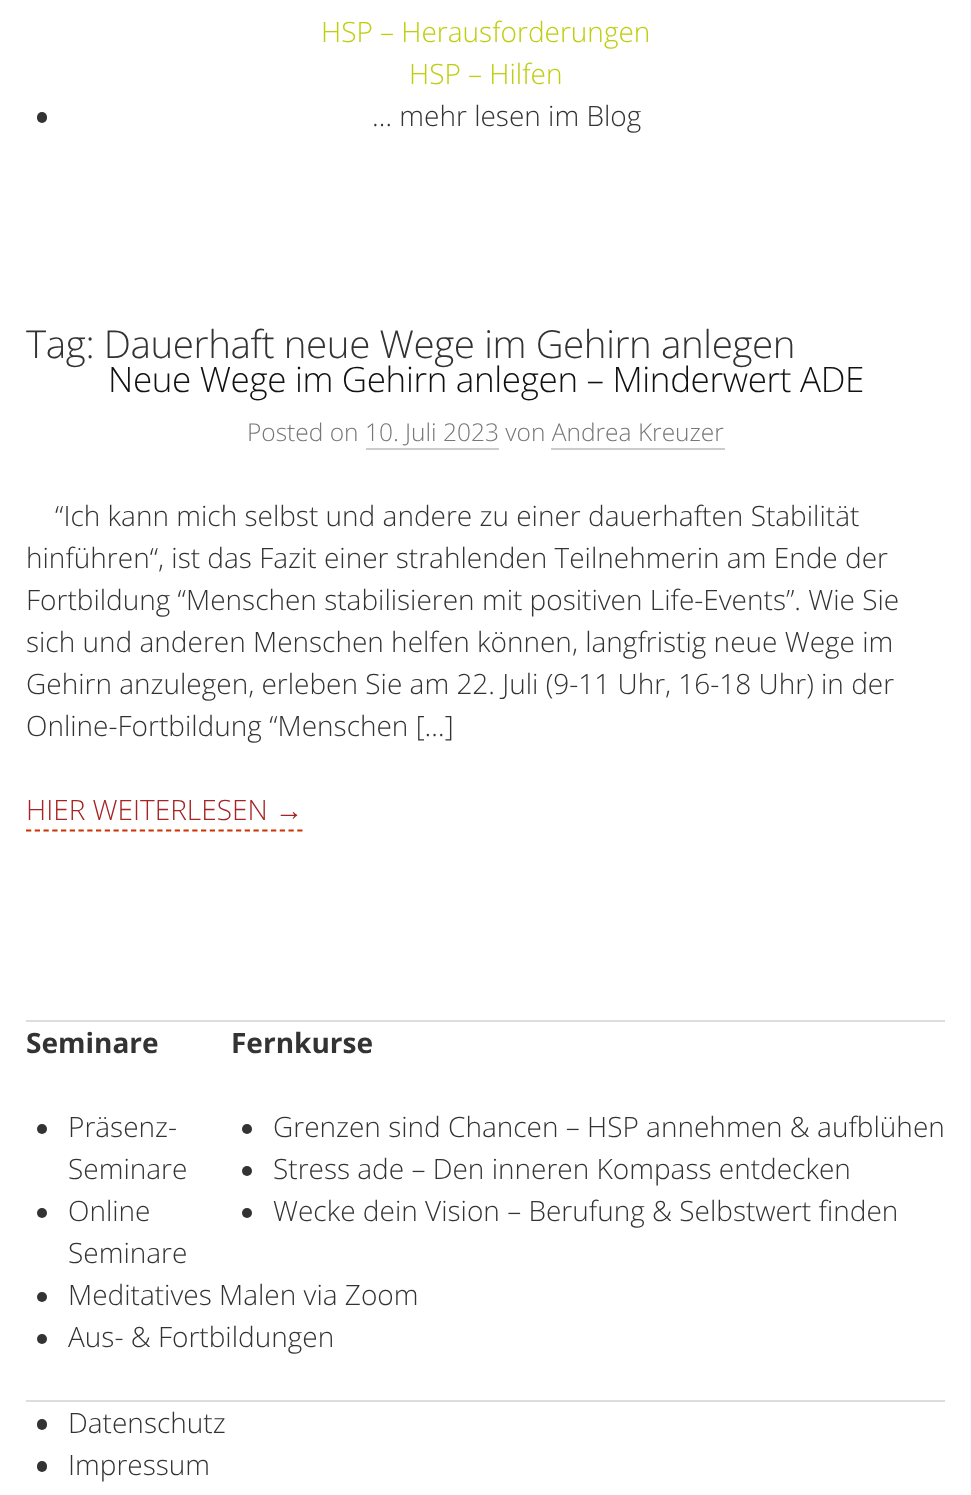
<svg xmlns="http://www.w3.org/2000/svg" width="971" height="1495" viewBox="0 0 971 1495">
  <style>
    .t1 { font: 300 28px Open Sans; fill: #bece0a; }
    .t2 { font: 300 28px Open Sans; fill: #333; }
    .t3 { font: 300 38.5px Open Sans; letter-spacing: -0.4px; fill: #333; }
    .t4 { font: 300 35px Open Sans; letter-spacing: -0.35px; fill: #111; }
    .t5 { font: 300 24.5px Open Sans; fill: #777; }
    .t6 { font: 300 28px Open Sans; fill: #a62425; }
    .t7 { font: 28px Liberation Serif; fill: #a62425; }
    .t8 { font: bold 28px Open Sans; fill: #333; }
  </style>
  <rect width="100%" height="100%" fill="#fff"/>
  <text x="321" y="42" class="t1">HSP – Herausforderungen</text>
  <text x="409" y="84" class="t1">HSP – Hilfen</text>
  <rect x="37" y="112" width="10" height="11" rx="5" fill="#333"/>
  <text x="372" y="126" class="t2">… mehr lesen im Blog</text>
  <text x="26" y="358" class="t3">Tag: Dauerhaft neue Wege im Gehirn anlegen</text>
  <text x="108" y="392" class="t4">Neue Wege im Gehirn anlegen – Minderwert ADE</text>
  <text x="247" y="441" class="t5">Posted on 10. Juli 2023 von Andrea Kreuzer</text>
  <rect x="366" y="448" width="133" height="2" fill="#ccc"/>
  <rect x="551" y="448" width="174" height="2" fill="#ccc"/>
  <text x="55" y="526" class="t2">“Ich kann mich selbst und andere zu einer dauerhaften Stabilität</text>
  <text x="26" y="568" class="t2">hinführen“, ist das Fazit einer strahlenden Teilnehmerin am Ende der</text>
  <text x="26" y="610" class="t2">Fortbildung “Menschen stabilisieren mit positiven Life-Events”. Wie Sie</text>
  <text x="26" y="652" class="t2">sich und anderen Menschen helfen können, langfristig neue Wege im</text>
  <text x="26" y="694" class="t2">Gehirn anzulegen, erleben Sie am 22. Juli (9-11 Uhr, 16-18 Uhr) in der</text>
  <text x="26" y="736" class="t2">Online-Fortbildung “Menschen […]</text>
  <text x="26" y="820" class="t6">HIER WEITERLESEN</text>
  <text x="275" y="820" class="t7">→</text>
  <path d="M26 830.5H303" fill="none" stroke="#c30" stroke-width="1.8" stroke-dasharray="5.25 3.5"/>
  <rect x="26" y="1020" width="919" height="2" fill="#ddd"/>
  <text x="26" y="1053" class="t8">Seminare</text>
  <circle cx="42" cy="1129" r="5" fill="#333"/>
  <text x="68" y="1137" class="t2">Präsenz-</text>
  <text x="68" y="1179" class="t2">Seminare</text>
  <circle cx="42" cy="1213" r="5" fill="#333"/>
  <text x="68" y="1221" class="t2">Online</text>
  <text x="68" y="1263" class="t2">Seminare</text>
  <circle cx="42" cy="1297" r="5" fill="#333"/>
  <text x="68" y="1305" class="t2">Meditatives Malen via Zoom</text>
  <circle cx="42" cy="1339" r="5" fill="#333"/>
  <text x="68" y="1347" class="t2">Aus- &amp; Fortbildungen</text>
  <text x="231" y="1053" class="t8">Fernkurse</text>
  <circle cx="247" cy="1129" r="5" fill="#333"/>
  <text x="273" y="1137" class="t2">Grenzen sind Chancen – HSP annehmen &amp; aufblühen</text>
  <circle cx="247" cy="1171" r="5" fill="#333"/>
  <text x="273" y="1179" class="t2">Stress ade – Den inneren Kompass entdecken</text>
  <circle cx="247" cy="1213" r="5" fill="#333"/>
  <text x="273" y="1221" class="t2">Wecke dein Vision – Berufung &amp; Selbstwert finden</text>
  <rect x="26" y="1400" width="919" height="2" fill="#ddd"/>
  <rect x="37" y="1419" width="10" height="11" rx="5" fill="#333"/>
  <text x="68" y="1433" class="t2">Datenschutz</text>
  <rect x="37" y="1461" width="10" height="11" rx="5" fill="#333"/>
  <text x="68" y="1475" class="t2">Impressum</text>
</svg>
